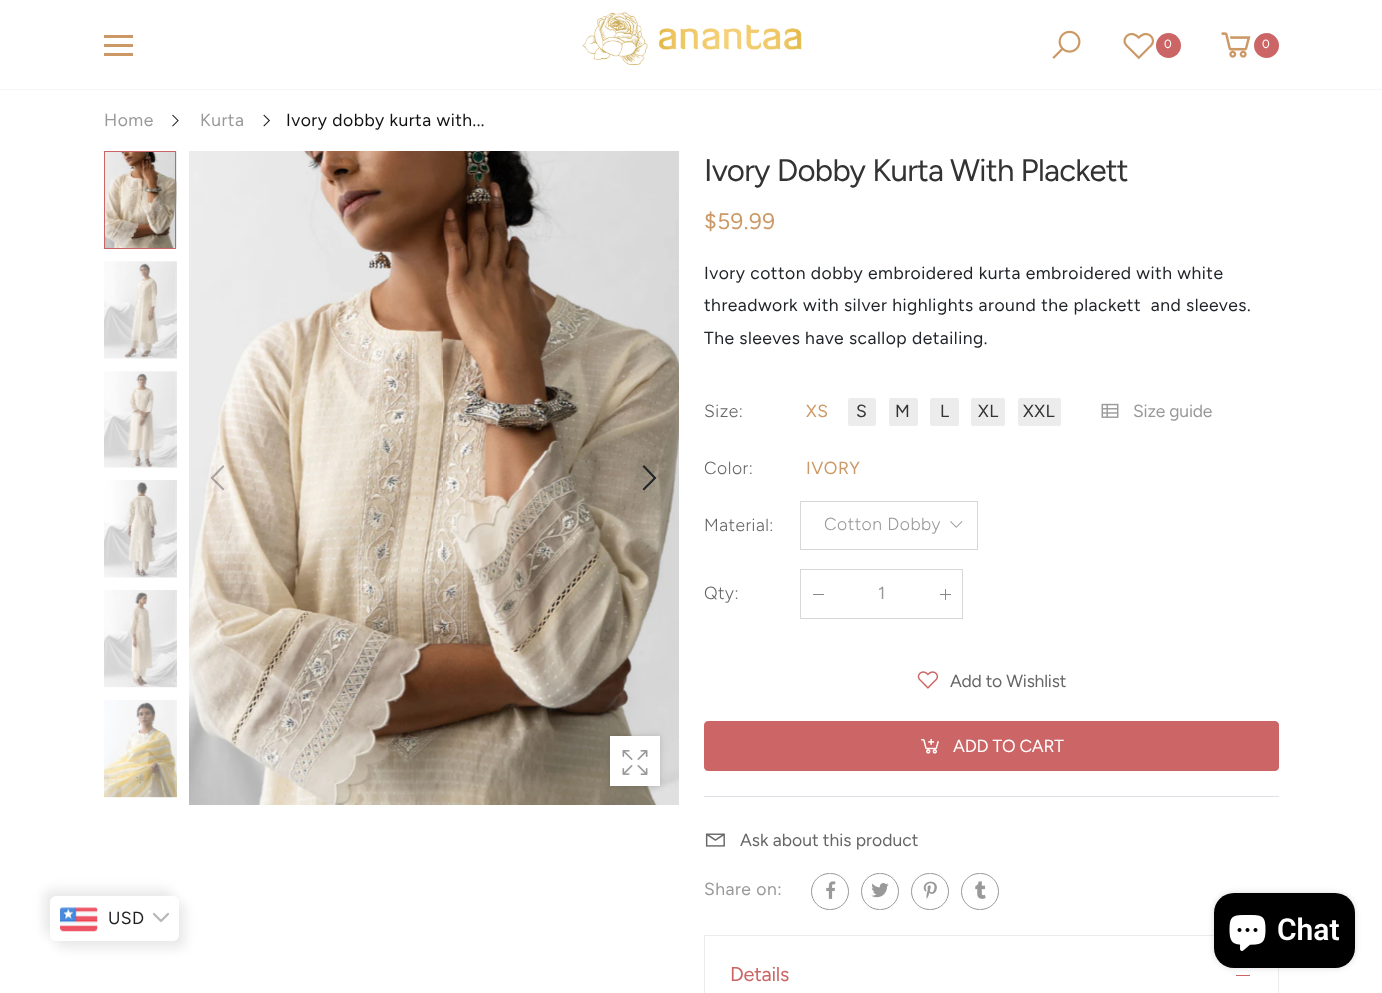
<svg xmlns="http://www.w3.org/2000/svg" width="1382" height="993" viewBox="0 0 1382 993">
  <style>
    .t1 { font: 12px Figtree; letter-spacing: 0.5px; fill: #fff; }
    .t2 { font: 17.5px Figtree; letter-spacing: 0.5px; fill: #999; }
    .t3 { font: 17.5px Figtree; letter-spacing: 0.5px; fill: #111; }
    .t4 { font: 31.25px Figtree; letter-spacing: -0.75px; fill: #333; }
    .t5 { font: 22.5px Figtree; letter-spacing: 0.5px; fill: #c96; }
    .t6 { font: 17.5px Figtree; letter-spacing: 0.5px; fill: #212529; }
    .t7 { font: 300 17.5px Figtree; letter-spacing: 0.5px; fill: #666; }
    .t8 { font: 17.5px Figtree; letter-spacing: 0.5px; fill: #c96; }
    .t9 { font: 17.5px Figtree; letter-spacing: 0.5px; fill: #333; }
    .t10 { font: 17.5px Figtree; letter-spacing: -0.2px; fill: #999; }
    .t11 { font: 300 17.5px Figtree; letter-spacing: 0.5px; fill: #999; }
    .t12 { font: 17.5px Figtree; fill: #999; }
    .t13 { font: 17.5px Figtree; letter-spacing: -0.2px; fill: #666; }
    .t14 { font: 17.5px Figtree; letter-spacing: -0.2px; fill: #fff; }
    .t15 { font: 17.5px Figtree; fill: #666; }
    .t16 { font: 20px Figtree; letter-spacing: -0.25px; fill: #c66; }
    .t17 { font: 17.5px Figtree; letter-spacing: 0.5px; fill: #1e1e1e; }
    .t18 { font: 600 30px Roboto; fill: #fff; }
  </style>
  <defs>
    <clipPath id="clip1"><path d="M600 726H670V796H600ZM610 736H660V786H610Z" clip-rule="evenodd"/></clipPath>
  </defs>
  <rect width="100%" height="100%" fill="#fff"/>
  <rect x="104" y="35" width="29" height="3" fill="#c96"/>
  <rect x="104" y="44" width="29" height="3" fill="#c96"/>
  <rect x="104" y="53" width="29" height="3" fill="#c96"/>
  <image x="582" y="12" width="220" height="53" href="images/1.png"/>
  <image x="1052" y="30" width="29" height="29" href="images/2.png"/>
  <image x="1123" y="33" width="32" height="27" href="images/3.png"/>
  <circle cx="1168.5" cy="45.5" r="12.5" fill="#c66"/>
  <text x="1164" y="48" class="t1">0</text>
  <image x="1221" y="32" width="30" height="26" href="images/4.png"/>
  <circle cx="1266.5" cy="45.5" r="12.5" fill="#c66"/>
  <text x="1262" y="48" class="t1">0</text>
  <rect x="0" y="89" width="1382" height="1" fill="#f5f6f8"/>
  <text x="104" y="126" class="t2">Home</text>
  <image x="172" y="114" width="7" height="13" href="images/5.png"/>
  <text x="200" y="126" class="t2">Kurta</text>
  <image x="263" y="114" width="7" height="13" href="images/6.png"/>
  <text x="286" y="126" class="t3">Ivory dobby kurta with...</text>
  <image x="105" y="151" width="72" height="98" href="images/7.png"/>
  <rect x="104.5" y="151.5" width="71" height="97" fill="none" stroke="#c66"/>
  <image x="104" y="261" width="73" height="98" href="images/8.png"/>
  <image x="104" y="371" width="73" height="97" href="images/9.png"/>
  <image x="104" y="480" width="73" height="98" href="images/10.png"/>
  <image x="104" y="590" width="73" height="98" href="images/11.png"/>
  <image x="104" y="700" width="73" height="98" href="images/12.png"/>
  <image x="189" y="151" width="490" height="654" href="images/13.png"/>
  <path d="M223 465L224.5 466.5L213.5 478L224.5 489L223 490.5L210.5 478Z" fill="#21252959"/>
  <path d="M644 465L656.5 478L644 490.5L642.5 489L653.5 478L642.5 466.5Z" fill="#212529"/>
  <rect x="610" y="736" width="50" height="50" fill="#fff"/>
  <image x="622" y="750" width="26" height="25" href="images/14.png"/>
  <g clip-path="url(#clip1)">
    <rect x="610" y="736" width="50" height="50" fill="#00000026" filter="blur(3px)"/>
  </g>
  <text x="704" y="181" class="t4">Ivory Dobby Kurta With Plackett</text>
  <text x="704" y="229" class="t5">$59.99</text>
  <text x="704" y="279" class="t6">Ivory cotton dobby embroidered kurta embroidered with white</text>
  <text x="704" y="311" class="t6" xml:space="preserve">threadwork with silver highlights around the plackett  and sleeves.</text>
  <text x="704" y="344" class="t6">The sleeves have scallop detailing.</text>
  <text x="704" y="417" class="t7">Size:</text>
  <text x="806" y="417" class="t8">XS</text>
  <rect x="848" y="398" width="28" height="28" rx="2.5" fill="#ececec"/>
  <text x="856" y="417" class="t9">S</text>
  <rect x="889" y="398" width="29" height="28" rx="2.5" fill="#ececec"/>
  <text x="895" y="417" class="t9">M</text>
  <rect x="930" y="398" width="29" height="28" rx="2.5" fill="#ececec"/>
  <text x="940" y="417" class="t9">L</text>
  <rect x="971" y="398" width="34" height="28" rx="2.5" fill="#ececec"/>
  <text x="978" y="417" class="t9">XL</text>
  <rect x="1018" y="398" width="43" height="28" rx="2.5" fill="#ececec"/>
  <text x="1023" y="417" class="t9">XXL</text>
  <image x="1101" y="403" width="18" height="15" href="images/15.png"/>
  <text x="1133" y="417" class="t10">Size guide</text>
  <text x="704" y="474" class="t7">Color:</text>
  <text x="806" y="474" class="t8">IVORY</text>
  <text x="704" y="531" class="t7">Material:</text>
  <rect x="800.5" y="501.5" width="177" height="48" fill="none" stroke="#d7d7d7"/>
  <text x="824" y="530" class="t11">Cotton Dobby</text>
  <image x="950" y="521" width="13" height="7" href="images/16.png"/>
  <text x="704" y="599" class="t7">Qty:</text>
  <rect x="800.5" y="569.5" width="162" height="49" fill="none" stroke="#d7d7d7"/>
  <rect x="813" y="594" width="11" height="1" fill="#888"/>
  <text x="878" y="599" class="t12">1</text>
  <rect x="940" y="594" width="11" height="1" fill="#888"/>
  <rect x="945" y="589" width="1" height="11" fill="#888"/>
  <image x="917" y="671" width="22" height="18" href="images/17.png"/>
  <text x="950" y="687" class="t13">Add to Wishlist</text>
  <rect x="704.5" y="721.5" width="574" height="49" rx="3.5" fill="#c66" stroke="#c66"/>
  <image x="921" y="739" width="18" height="15" href="images/18.png"/>
  <text x="953" y="752" class="t14">ADD TO CART</text>
  <rect x="704" y="796" width="575" height="1" fill="#dee2e6"/>
  <image x="705" y="833" width="20" height="14" href="images/19.png"/>
  <text x="740" y="846" class="t15">Ask about this product</text>
  <text x="704" y="895" class="t2">Share on:</text>
  <rect x="811.5" y="873.5" width="37" height="36" rx="18" fill="none" stroke="#999"/>
  <image x="826" y="881" width="10" height="18" href="images/20.png"/>
  <rect x="861.5" y="873.5" width="37" height="36" rx="18" fill="none" stroke="#999"/>
  <image x="871" y="883" width="18" height="15" href="images/21.png"/>
  <rect x="911.5" y="873.5" width="37" height="36" rx="18" fill="none" stroke="#999"/>
  <image x="923" y="881" width="14" height="18" href="images/22.png"/>
  <rect x="961.5" y="873.5" width="37" height="36" rx="18" fill="none" stroke="#999"/>
  <image x="975" y="881" width="11" height="18" href="images/23.png"/>
  <rect x="704" y="935" width="510" height="1" fill="#ebebeb"/>
  <rect x="1278" y="968" width="1" height="25" fill="#ebebeb"/>
  <rect x="704" y="935" width="1" height="58" fill="#ebebeb"/>
  <text x="730" y="981" class="t16">Details</text>
  <rect x="1236" y="975" width="14" height="1" fill="#c66"/>
  <rect x="44" y="890" width="129" height="45" rx="6" fill="#e8e8e8" filter="blur(6px)"/>
  <rect x="56" y="903" width="129" height="45" rx="6" fill="#e8e8e8" filter="blur(6px)"/>
  <rect x="50" y="896" width="129" height="45" rx="6" fill="#fff"/>
  <image x="60" y="907" width="38" height="25" href="images/24.png"/>
  <text x="108" y="924" class="t17">USD</text>
  <path d="M154 914L161 921L168 914" fill="none" stroke="#b7b7b7" stroke-width="2.3" stroke-linecap="round" stroke-linejoin="round"/>
  <rect x="1214" y="893" width="141" height="75" rx="20" fill="#00000026" filter="blur(3px)"/>
  <rect x="1214" y="893" width="141" height="75" rx="20" fill="#000"/>
  <image x="1229" y="915" width="37" height="36" href="images/25.png"/>
  <text x="1277" y="940" class="t18">Chat</text>
</svg>
